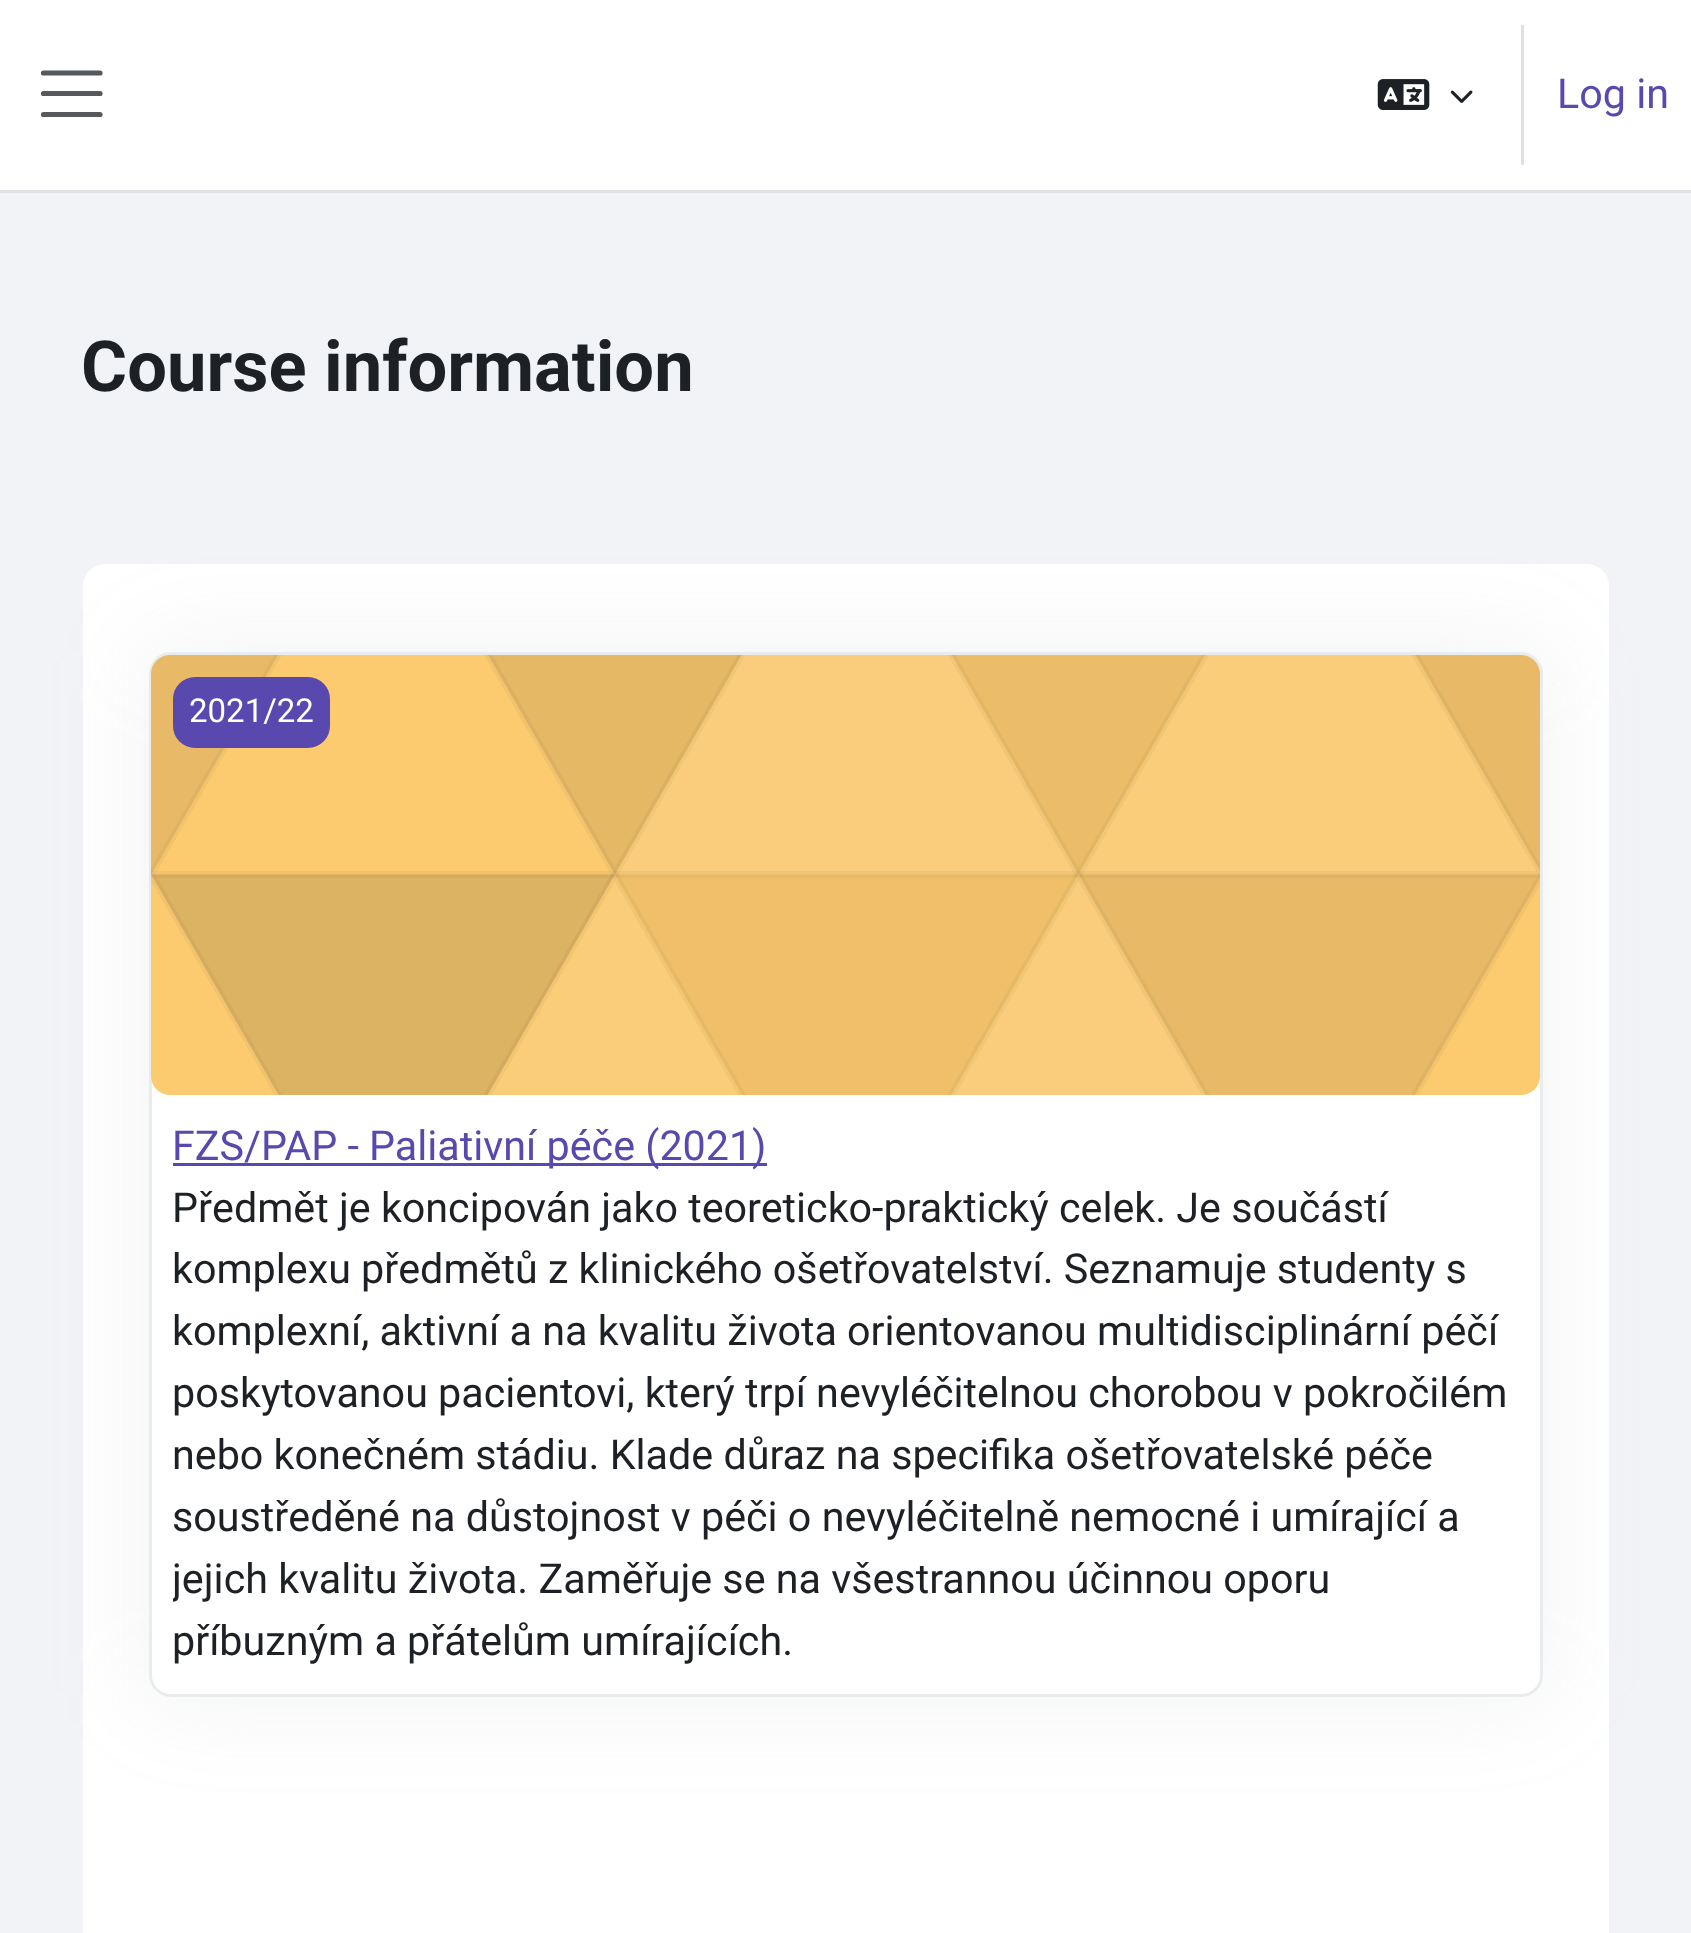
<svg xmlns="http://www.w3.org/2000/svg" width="1691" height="1933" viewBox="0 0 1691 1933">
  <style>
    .t1 { font: 41.25px Roboto; fill: #5948ad; }
    .t2 { font: bold 70.5px Roboto; fill: #1d2125; }
    .t3 { font: 33px Roboto; fill: #fff; }
    .t4 { font: 41.25px Roboto; fill: #1d2125; }
  </style>
  <defs>
    <clipPath id="clip1"><rect x="173" y="1177" width="1345" height="495"/></clipPath>
  </defs>
  <rect width="100%" height="100%" fill="#f2f3f7"/>
  <rect x="0" y="0" width="1691" height="190" fill="#fff"/>
  <rect x="0" y="190" width="1691" height="3" fill="#dee2e6"/>
  <path d="M43.5 73H100M43.5 93.5H100M43.5 114.5H100" fill="none" stroke="#56595c" stroke-width="5.2" stroke-linecap="round"/>
  <image x="1377" y="79" width="53" height="31" href="images/1.png"/>
  <image x="1450" y="90" width="23" height="13" href="images/2.png"/>
  <rect x="1521" y="25" width="3" height="140" fill="#dee2e6"/>
  <text x="1557" y="108" class="t1">Log in</text>
  <text x="81" y="391" class="t2">Course information</text>
  <rect x="83" y="564" width="1526" height="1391" rx="22" fill="#fff"/>
  <rect x="149" y="652" width="1394" height="1045" rx="22" fill="#9aa1ab26" filter="blur(48px)"/>
  <rect x="150.5" y="653.5" width="1391" height="1042" rx="20.5" fill="#fff" stroke="#e9ecef" stroke-width="3"/>
  <image x="151" y="655" width="1389" height="440" href="images/3.png"/>
  <rect x="173" y="677" width="157" height="71" rx="22" fill="#5948ad"/>
  <text x="189" y="722" class="t3">2021/22</text>
  <rect x="173" y="1163" width="594" height="3" fill="#5948ad"/>
  <text x="172" y="1160" class="t1">FZS/PAP - Paliativní péče (2021)</text>
  <text x="172" y="1222" class="t4">Předmět je koncipován jako teoreticko-praktický celek. Je součástí</text>
  <text x="172" y="1283" class="t4">komplexu předmětů z klinického ošetřovatelství. Seznamuje studenty s</text>
  <text x="172" y="1345" class="t4">komplexní, aktivní a na kvalitu života orientovanou multidisciplinární péčí</text>
  <text x="172" y="1407" class="t4">poskytovanou pacientovi, který trpí nevyléčitelnou chorobou v pokročilém</text>
  <text x="172" y="1469" class="t4">nebo konečném stádiu. Klade důraz na specifika ošetřovatelské péče</text>
  <text x="172" y="1531" class="t4">soustředěné na důstojnost v péči o nevyléčitelně nemocné i umírající a</text>
  <g clip-path="url(#clip1)">
    <text x="172" y="1593" class="t4">jejich kvalitu života. Zaměřuje se na všestrannou účinnou oporu</text>
  </g>
  <text x="172" y="1655" class="t4">příbuzným a přátelům umírajících.</text>
</svg>
